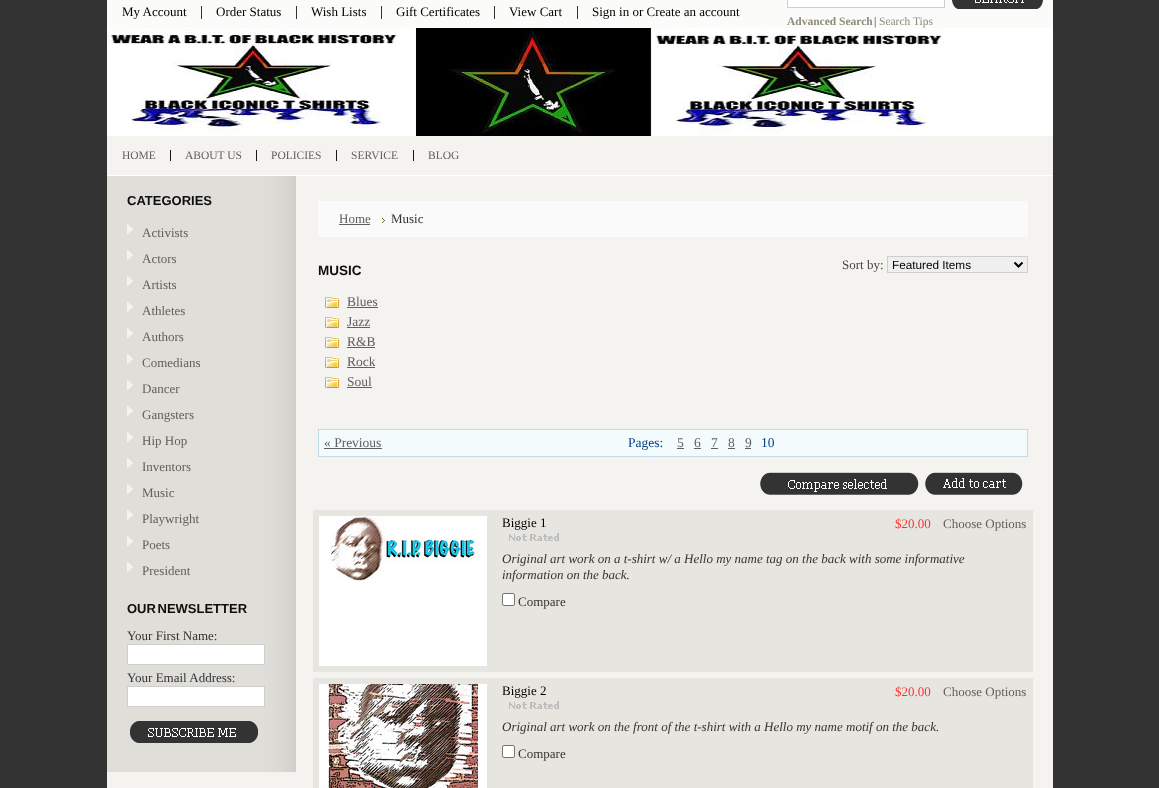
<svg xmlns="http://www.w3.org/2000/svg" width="1159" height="788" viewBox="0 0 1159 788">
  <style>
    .t1 { font: 13px Liberation Serif; fill: #000; }
    .t2 { font: bold 11.5px Liberation Serif; fill: #8e8b79; }
    .t3 { font: 11.5px Liberation Serif; fill: #333; }
    .t4 { font: 11.5px Liberation Serif; fill: #8e8b79; }
    .t5 { font: 11.5px Liberation Serif; fill: #606060; }
    .t6 { font: bold 13px Liberation Sans; fill: #0e0e0e; }
    .t7 { font: 13px Liberation Serif; fill: #606060; }
    .t8 { font: 13px Liberation Serif; fill: #333; }
    .t9 { font: bold 13.5px Liberation Sans; fill: #0e0e0e; }
    .t10 { font: 13px Liberation Serif; fill: #444; }
    .t11 { font: 11.75px Liberation Sans; fill: #000; }
    .t12 { font: 13.5px Liberation Serif; fill: #606060; }
    .t13 { font: 13.5px Liberation Serif; fill: #034285; }
    .t14 { font: 13px Liberation Serif; fill: #f33; }
    .t15 { font: italic 13px Liberation Serif; fill: #333; }
  </style>
  <rect width="100%" height="100%" fill="#333"/>
  <rect x="107" y="0" width="946" height="28" fill="#fbfbfa"/>
  <text x="122" y="16" class="t1">My Account</text>
  <rect x="201" y="6" width="1" height="13" fill="#333"/>
  <text x="216" y="16" class="t1">Order Status</text>
  <rect x="296" y="6" width="1" height="13" fill="#333"/>
  <text x="311" y="16" class="t1">Wish Lists</text>
  <rect x="381" y="6" width="1" height="13" fill="#333"/>
  <text x="396" y="16" class="t1">Gift Certificates</text>
  <rect x="494" y="6" width="1" height="13" fill="#333"/>
  <text x="509" y="16" class="t1">View Cart</text>
  <rect x="577" y="6" width="1" height="13" fill="#333"/>
  <text x="592" y="16" class="t1">Sign in or Create an account</text>
  <rect x="107" y="136" width="946" height="652" fill="#f4f3ef"/>
  <rect x="787.5" y="-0.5" width="157" height="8" fill="#fff" stroke="#cecece"/>
  <image x="952" y="0" width="91" height="9" href="images/1.png"/>
  <text x="787" y="25" class="t2">Advanced Search</text>
  <text x="874" y="25" class="t3">|</text>
  <text x="879" y="25" class="t4">Search Tips</text>
  <image x="107" y="28" width="946" height="108" href="images/2.png"/>
  <rect x="107" y="175" width="946" height="1" fill="#fff"/>
  <text x="122" y="159" class="t5">HOME</text>
  <rect x="170" y="150" width="1" height="11" fill="#171717"/>
  <text x="185" y="159" class="t5">ABOUT US</text>
  <rect x="256" y="150" width="1" height="11" fill="#171717"/>
  <text x="271" y="159" class="t5">POLICIES</text>
  <rect x="336" y="150" width="1" height="11" fill="#171717"/>
  <text x="351" y="159" class="t5">SERVICE</text>
  <rect x="413" y="150" width="1" height="11" fill="#171717"/>
  <text x="428" y="159" class="t5">BLOG</text>
  <image x="107" y="176" width="189" height="596" href="images/3.png"/>
  <text x="127" y="205" class="t6">CATEGORIES</text>
  <image x="127" y="224" width="6" height="10" href="images/4.png"/>
  <text x="142" y="237" class="t7">Activists</text>
  <image x="127" y="250" width="6" height="10" href="images/4.png"/>
  <text x="142" y="263" class="t7">Actors</text>
  <image x="127" y="276" width="6" height="10" href="images/4.png"/>
  <text x="142" y="289" class="t7">Artists</text>
  <image x="127" y="302" width="6" height="10" href="images/4.png"/>
  <text x="142" y="315" class="t7">Athletes</text>
  <image x="127" y="328" width="6" height="10" href="images/4.png"/>
  <text x="142" y="341" class="t7">Authors</text>
  <image x="127" y="354" width="6" height="10" href="images/4.png"/>
  <text x="142" y="367" class="t7">Comedians</text>
  <image x="127" y="380" width="6" height="10" href="images/4.png"/>
  <text x="142" y="393" class="t7">Dancer</text>
  <image x="127" y="406" width="6" height="10" href="images/4.png"/>
  <text x="142" y="419" class="t7">Gangsters</text>
  <image x="127" y="432" width="6" height="10" href="images/4.png"/>
  <text x="142" y="445" class="t7">Hip Hop</text>
  <image x="127" y="458" width="6" height="10" href="images/4.png"/>
  <text x="142" y="471" class="t7">Inventors</text>
  <image x="127" y="484" width="6" height="10" href="images/4.png"/>
  <text x="142" y="497" class="t7">Music</text>
  <image x="127" y="510" width="6" height="10" href="images/4.png"/>
  <text x="142" y="523" class="t7">Playwright</text>
  <image x="127" y="536" width="6" height="10" href="images/4.png"/>
  <text x="142" y="549" class="t7">Poets</text>
  <image x="127" y="562" width="6" height="10" href="images/4.png"/>
  <text x="142" y="575" class="t7">President</text>
  <text x="127" y="613" word-spacing="-2" class="t6">OUR NEWSLETTER</text>
  <text x="127" y="640" class="t8">Your First Name:</text>
  <rect x="127.5" y="644.5" width="137" height="20" fill="#fff" stroke="#cecece"/>
  <text x="127" y="682" class="t8">Your Email Address:</text>
  <rect x="127.5" y="686.5" width="137" height="20" fill="#fff" stroke="#cecece"/>
  <image x="130" y="721" width="128" height="22" href="images/5.png"/>
  <rect x="318" y="201" width="710" height="36" fill="#fbfafa"/>
  <text x="339" y="223" class="t7">Home</text>
  <rect x="339" y="224" width="31" height="1" fill="#606060"/>
  <image x="382" y="218" width="3" height="5" href="images/6.png"/>
  <text x="391" y="223" class="t8">Music</text>
  <text x="318" y="275" class="t9">MUSIC</text>
  <text x="842" y="269" class="t10">Sort by:</text>
  <rect x="887.5" y="256.5" width="140" height="16" fill="#efefef" stroke="#cecece"/>
  <path d="M1014.5 262.5L1018.5 266.5L1022.5 262.5" fill="none" stroke="#000" stroke-width="2"/>
  <text x="892" y="269" class="t11">Featured Items</text>
  <image x="325" y="297" width="14" height="11" href="images/7.png"/>
  <text x="347" y="306" class="t12">Blues</text>
  <rect x="347" y="307" width="31" height="1" fill="#606060"/>
  <image x="325" y="317" width="14" height="11" href="images/7.png"/>
  <text x="347" y="326" class="t12">Jazz</text>
  <rect x="347" y="327" width="23" height="1" fill="#606060"/>
  <image x="325" y="337" width="14" height="11" href="images/7.png"/>
  <text x="347" y="346" class="t12">R&amp;B</text>
  <rect x="347" y="347" width="28" height="1" fill="#606060"/>
  <image x="325" y="357" width="14" height="11" href="images/7.png"/>
  <text x="347" y="366" class="t12">Rock</text>
  <rect x="347" y="367" width="28" height="1" fill="#606060"/>
  <image x="325" y="377" width="14" height="11" href="images/7.png"/>
  <text x="347" y="386" class="t12">Soul</text>
  <rect x="347" y="387" width="25" height="1" fill="#606060"/>
  <rect x="318.5" y="429.5" width="709" height="27" fill="#f4fbfc" stroke="#c0dae7"/>
  <text x="324" y="447" class="t12">« Previous</text>
  <rect x="324" y="448" width="58" height="1" fill="#606060"/>
  <text x="628" y="447" class="t13">Pages:</text>
  <text x="677" y="447" class="t12">5</text>
  <rect x="677" y="448" width="7" height="1" fill="#606060"/>
  <text x="694" y="447" class="t12">6</text>
  <rect x="694" y="448" width="7" height="1" fill="#606060"/>
  <text x="711" y="447" class="t12">7</text>
  <rect x="711" y="448" width="7" height="1" fill="#606060"/>
  <text x="728" y="447" class="t12">8</text>
  <rect x="728" y="448" width="7" height="1" fill="#606060"/>
  <text x="745" y="447" class="t12">9</text>
  <rect x="745" y="448" width="6" height="1" fill="#606060"/>
  <text x="761" y="447" class="t13">10</text>
  <image x="760" y="472" width="159" height="23" href="images/8.png"/>
  <image x="925" y="472" width="98" height="23" href="images/9.png"/>
  <rect x="313" y="510" width="720" height="162" fill="#e6e5e0"/>
  <rect x="319" y="516" width="168" height="150" fill="#fff"/>
  <image x="328" y="516" width="150" height="65" href="images/10.png"/>
  <text x="502" y="527" class="t1">Biggie 1</text>
  <text x="895" y="528" class="t14">$20.00</text>
  <text x="943" y="528" class="t7">Choose Options</text>
  <image x="509" y="533" width="50" height="8" href="images/11.png"/>
  <text x="502" y="563" class="t15">Original art work on a t-shirt w/ a Hello my name tag on the back with some informative</text>
  <text x="502" y="579" class="t15">information on the back.</text>
  <rect x="502.5" y="593.5" width="12" height="12" rx="1.5" fill="#fff" stroke="#767676"/>
  <text x="518" y="606" class="t8">Compare</text>
  <rect x="313" y="678" width="720" height="110" fill="#e6e5e0"/>
  <rect x="319" y="684" width="168" height="104" fill="#fff"/>
  <image x="328" y="684" width="150" height="104" href="images/12.png"/>
  <text x="502" y="695" class="t1">Biggie 2</text>
  <text x="895" y="696" class="t14">$20.00</text>
  <text x="943" y="696" class="t7">Choose Options</text>
  <image x="509" y="701" width="50" height="8" href="images/11.png"/>
  <text x="502" y="731" class="t15">Original art work on the front of the t-shirt with a Hello my name motif on the back.</text>
  <rect x="502.5" y="745.5" width="12" height="12" rx="1.5" fill="#fff" stroke="#767676"/>
  <text x="518" y="758" class="t8">Compare</text>
</svg>
